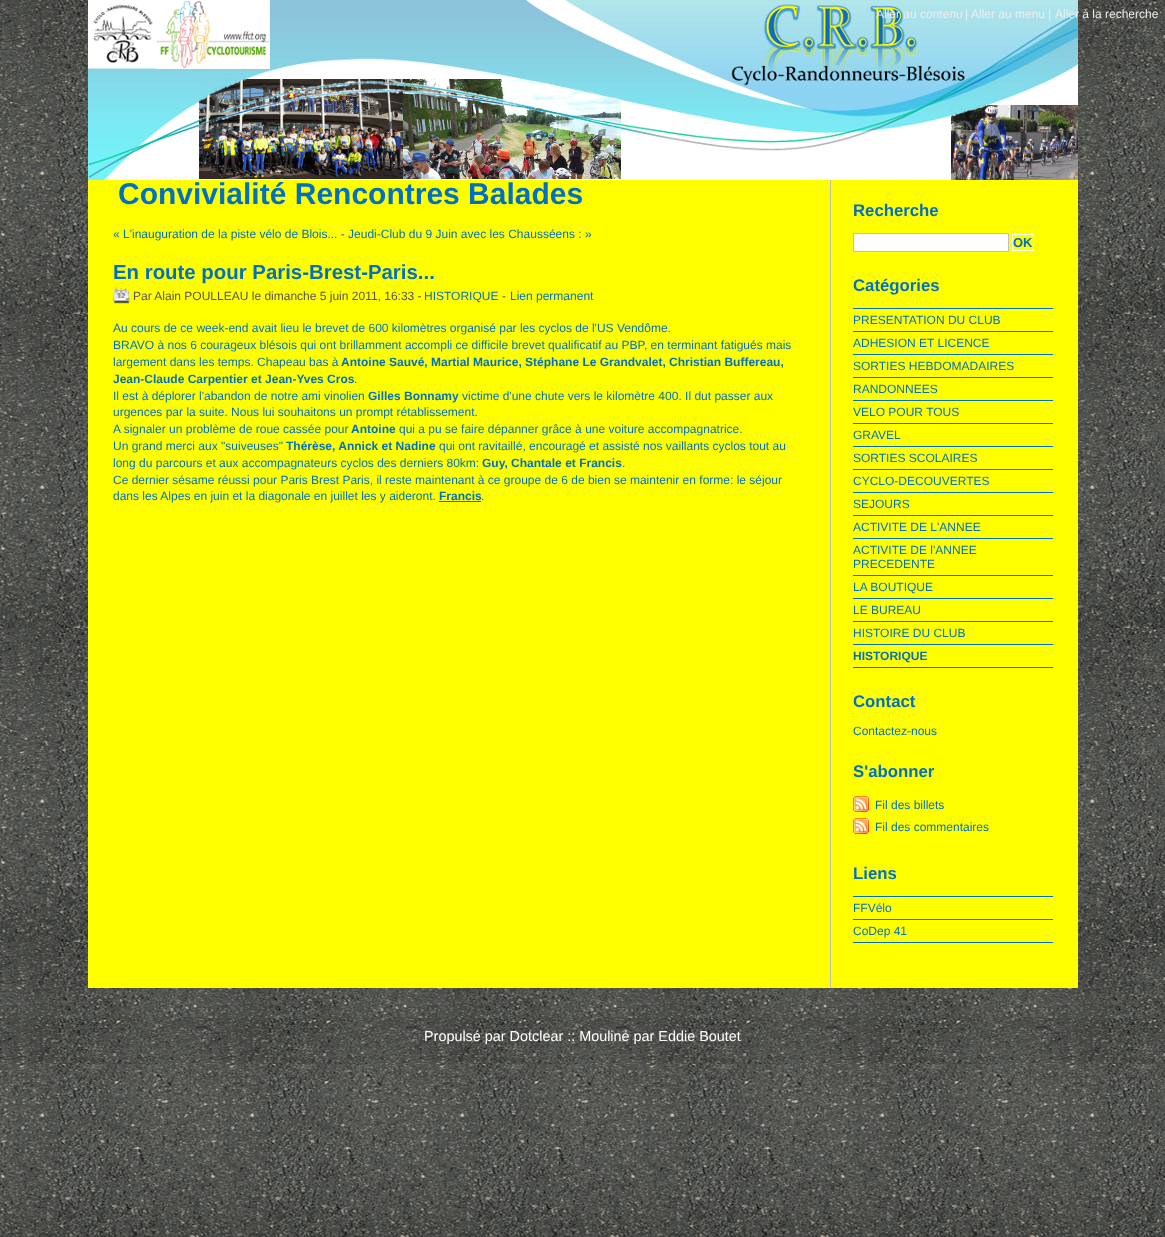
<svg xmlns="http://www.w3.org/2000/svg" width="1165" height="1237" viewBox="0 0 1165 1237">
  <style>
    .t1 { font: 12px Liberation Sans; fill: #ededed; }
    .t2 { font: bold 30px Liberation Sans; fill: #0070c0; }
    .t3 { font: 12px Liberation Sans; fill: #0070c0; }
    .t4 { font: bold 20.4px Liberation Sans; fill: #0070c0; }
    .t5 { font: 12px Liberation Sans; fill: #555; }
    .t6 { font: bold 12px Liberation Sans; fill: #0070c0; }
    .t7 { font: bold 16.75px Liberation Sans; fill: #0070c0; }
    .t8 { font: bold 13px Liberation Sans; fill: #0070c0; }
    .t9 { font: 14.4px Liberation Sans; fill: #fff; }
  </style>
  <rect width="100%" height="100%" fill="#fff"/>
  <image x="0" y="0" width="1165" height="1237" href="images/1.png"/>
  <image x="88" y="0" width="990" height="180" href="images/2.png"/>
  <text x="876" y="18" class="t1">Aller au contenu</text>
  <text x="965" y="18" class="t1">|</text>
  <text x="971" y="18" class="t1">Aller au menu</text>
  <text x="1048" y="18" class="t1">|</text>
  <text x="1055" y="18" class="t1">Aller à la recherche</text>
  <image x="88" y="180" width="990" height="808" href="images/3.png"/>
  <text x="118" y="204" class="t2">Convivialité Rencontres Balades</text>
  <text x="113" y="238" class="t3">« L'inauguration de la piste vélo de Blois... - Jeudi-Club du 9 Juin avec les Chausséens : »</text>
  <text x="113" y="279" class="t4">En route pour Paris-Brest-Paris...</text>
  <image x="113" y="288" width="17" height="16" href="images/4.png"/>
  <text x="133" y="300" class="t5">Par Alain POULLEAU le dimanche 5 juin 2011, 16:33 -</text>
  <text x="424" y="300" class="t3">HISTORIQUE</text>
  <text x="502" y="300" class="t5">-</text>
  <text x="510" y="300" class="t3">Lien permanent</text>
  <text x="113" y="332" class="t3">Au cours de ce week-end avait lieu le brevet de 600 kilomètres organisé par les cyclos de l'US Vendôme.</text>
  <text x="113" y="349" class="t3">BRAVO à nos 6 courageux blésois qui ont brillamment accompli ce difficile brevet qualificatif au PBP, en terminant fatigués mais</text>
  <text x="113" y="366" class="t3">largement dans les temps. Chapeau bas à</text>
  <text x="341" y="366" class="t6">Antoine Sauvé, Martial Maurice, Stéphane Le Grandvalet, Christian Buffereau,</text>
  <text x="113" y="383" class="t6">Jean-Claude Carpentier et Jean-Yves Cros</text>
  <text x="354" y="383" class="t3">.</text>
  <text x="113" y="400" class="t3">Il est à déplorer l'abandon de notre ami vinolien</text>
  <text x="368" y="400" class="t6">Gilles Bonnamy</text>
  <text x="462" y="400" class="t3">victime d'une chute vers le kilomètre 400. Il dut passer aux</text>
  <text x="113" y="416" class="t3">urgences par la suite. Nous lui souhaitons un prompt rétablissement.</text>
  <text x="113" y="433" class="t3">A signaler un problème de roue cassée pour</text>
  <text x="351" y="433" class="t6">Antoine</text>
  <text x="399" y="433" class="t3">qui a pu se faire dépanner grâce à une voiture accompagnatrice.</text>
  <text x="113" y="450" class="t3">Un grand merci aux "suiveuses"</text>
  <text x="286" y="450" class="t6">Thérèse, Annick et Nadine</text>
  <text x="439" y="450" class="t3">qui ont ravitaillé, encouragé et assisté nos vaillants cyclos tout au</text>
  <text x="113" y="467" class="t3">long du parcours et aux accompagnateurs cyclos des derniers 80km:</text>
  <text x="482" y="467" class="t6">Guy, Chantale et Francis</text>
  <text x="622" y="467" class="t3">.</text>
  <text x="113" y="484" class="t3">Ce dernier sésame réussi pour Paris Brest Paris, il reste maintenant à ce groupe de 6 de bien se maintenir en forme: le séjour</text>
  <text x="113" y="500" class="t3">dans les Alpes en juin et la diagonale en juillet les y aideront.</text>
  <text x="439" y="500" class="t6">Francis</text>
  <rect x="439" y="501" width="42" height="1" fill="#0070c0"/>
  <text x="481" y="500" class="t3">.</text>
  <text x="853" y="216" class="t7">Recherche</text>
  <rect x="853.5" y="233.5" width="155" height="18" fill="#fff" stroke="#bfbfbf"/>
  <rect x="1012.5" y="234.5" width="21" height="16" fill="none" stroke="#fff"/>
  <text x="1013" y="247" class="t8">OK</text>
  <text x="853" y="291" class="t7">Catégories</text>
  <rect x="853" y="308" width="200" height="1" fill="#0070c0"/>
  <rect x="853" y="331" width="200" height="1" fill="#0070c0"/>
  <text x="853" y="324" class="t3">PRESENTATION DU CLUB</text>
  <rect x="853" y="354" width="200" height="1" fill="#0070c0"/>
  <text x="853" y="347" class="t3">ADHESION ET LICENCE</text>
  <rect x="853" y="377" width="200" height="1" fill="#0070c0"/>
  <text x="853" y="370" class="t3">SORTIES HEBDOMADAIRES</text>
  <rect x="853" y="400" width="200" height="1" fill="#0070c0"/>
  <text x="853" y="393" class="t3">RANDONNEES</text>
  <rect x="853" y="423" width="200" height="1" fill="#0070c0"/>
  <text x="853" y="416" class="t3">VELO POUR TOUS</text>
  <rect x="853" y="446" width="200" height="1" fill="#0070c0"/>
  <text x="853" y="439" class="t3">GRAVEL</text>
  <rect x="853" y="469" width="200" height="1" fill="#0070c0"/>
  <text x="853" y="462" class="t3">SORTIES SCOLAIRES</text>
  <rect x="853" y="492" width="200" height="1" fill="#0070c0"/>
  <text x="853" y="485" class="t3">CYCLO-DECOUVERTES</text>
  <rect x="853" y="515" width="200" height="1" fill="#0070c0"/>
  <text x="853" y="508" class="t3">SEJOURS</text>
  <rect x="853" y="538" width="200" height="1" fill="#0070c0"/>
  <text x="853" y="531" class="t3">ACTIVITE DE L'ANNEE</text>
  <rect x="853" y="575" width="200" height="1" fill="#0070c0"/>
  <text x="853" y="554" class="t3">ACTIVITE DE l'ANNEE</text>
  <text x="853" y="568" class="t3">PRECEDENTE</text>
  <rect x="853" y="598" width="200" height="1" fill="#0070c0"/>
  <text x="853" y="591" class="t3">LA BOUTIQUE</text>
  <rect x="853" y="621" width="200" height="1" fill="#0070c0"/>
  <text x="853" y="614" class="t3">LE BUREAU</text>
  <rect x="853" y="644" width="200" height="1" fill="#0070c0"/>
  <text x="853" y="637" class="t3">HISTOIRE DU CLUB</text>
  <rect x="853" y="667" width="200" height="1" fill="#0070c0"/>
  <text x="853" y="660" class="t6">HISTORIQUE</text>
  <text x="853" y="707" class="t7">Contact</text>
  <text x="853" y="735" class="t3">Contactez-nous</text>
  <text x="853" y="777" class="t7">S'abonner</text>
  <image x="853" y="796" width="16" height="16" href="images/5.png"/>
  <text x="875" y="809" class="t3">Fil des billets</text>
  <image x="853" y="818" width="16" height="16" href="images/5.png"/>
  <text x="875" y="831" class="t3">Fil des commentaires</text>
  <text x="853" y="879" class="t7">Liens</text>
  <rect x="853" y="896" width="200" height="1" fill="#0070c0"/>
  <rect x="853" y="919" width="200" height="1" fill="#0070c0"/>
  <text x="853" y="912" class="t3">FFVélo</text>
  <rect x="853" y="942" width="200" height="1" fill="#0070c0"/>
  <text x="853" y="935" class="t3">CoDep 41</text>
  <image x="0" y="1018" width="1165" height="46" href="images/6.png"/>
  <text x="424" y="1041" class="t9">Propulsé par Dotclear :: Mouliné par Eddie Boutet</text>
</svg>
